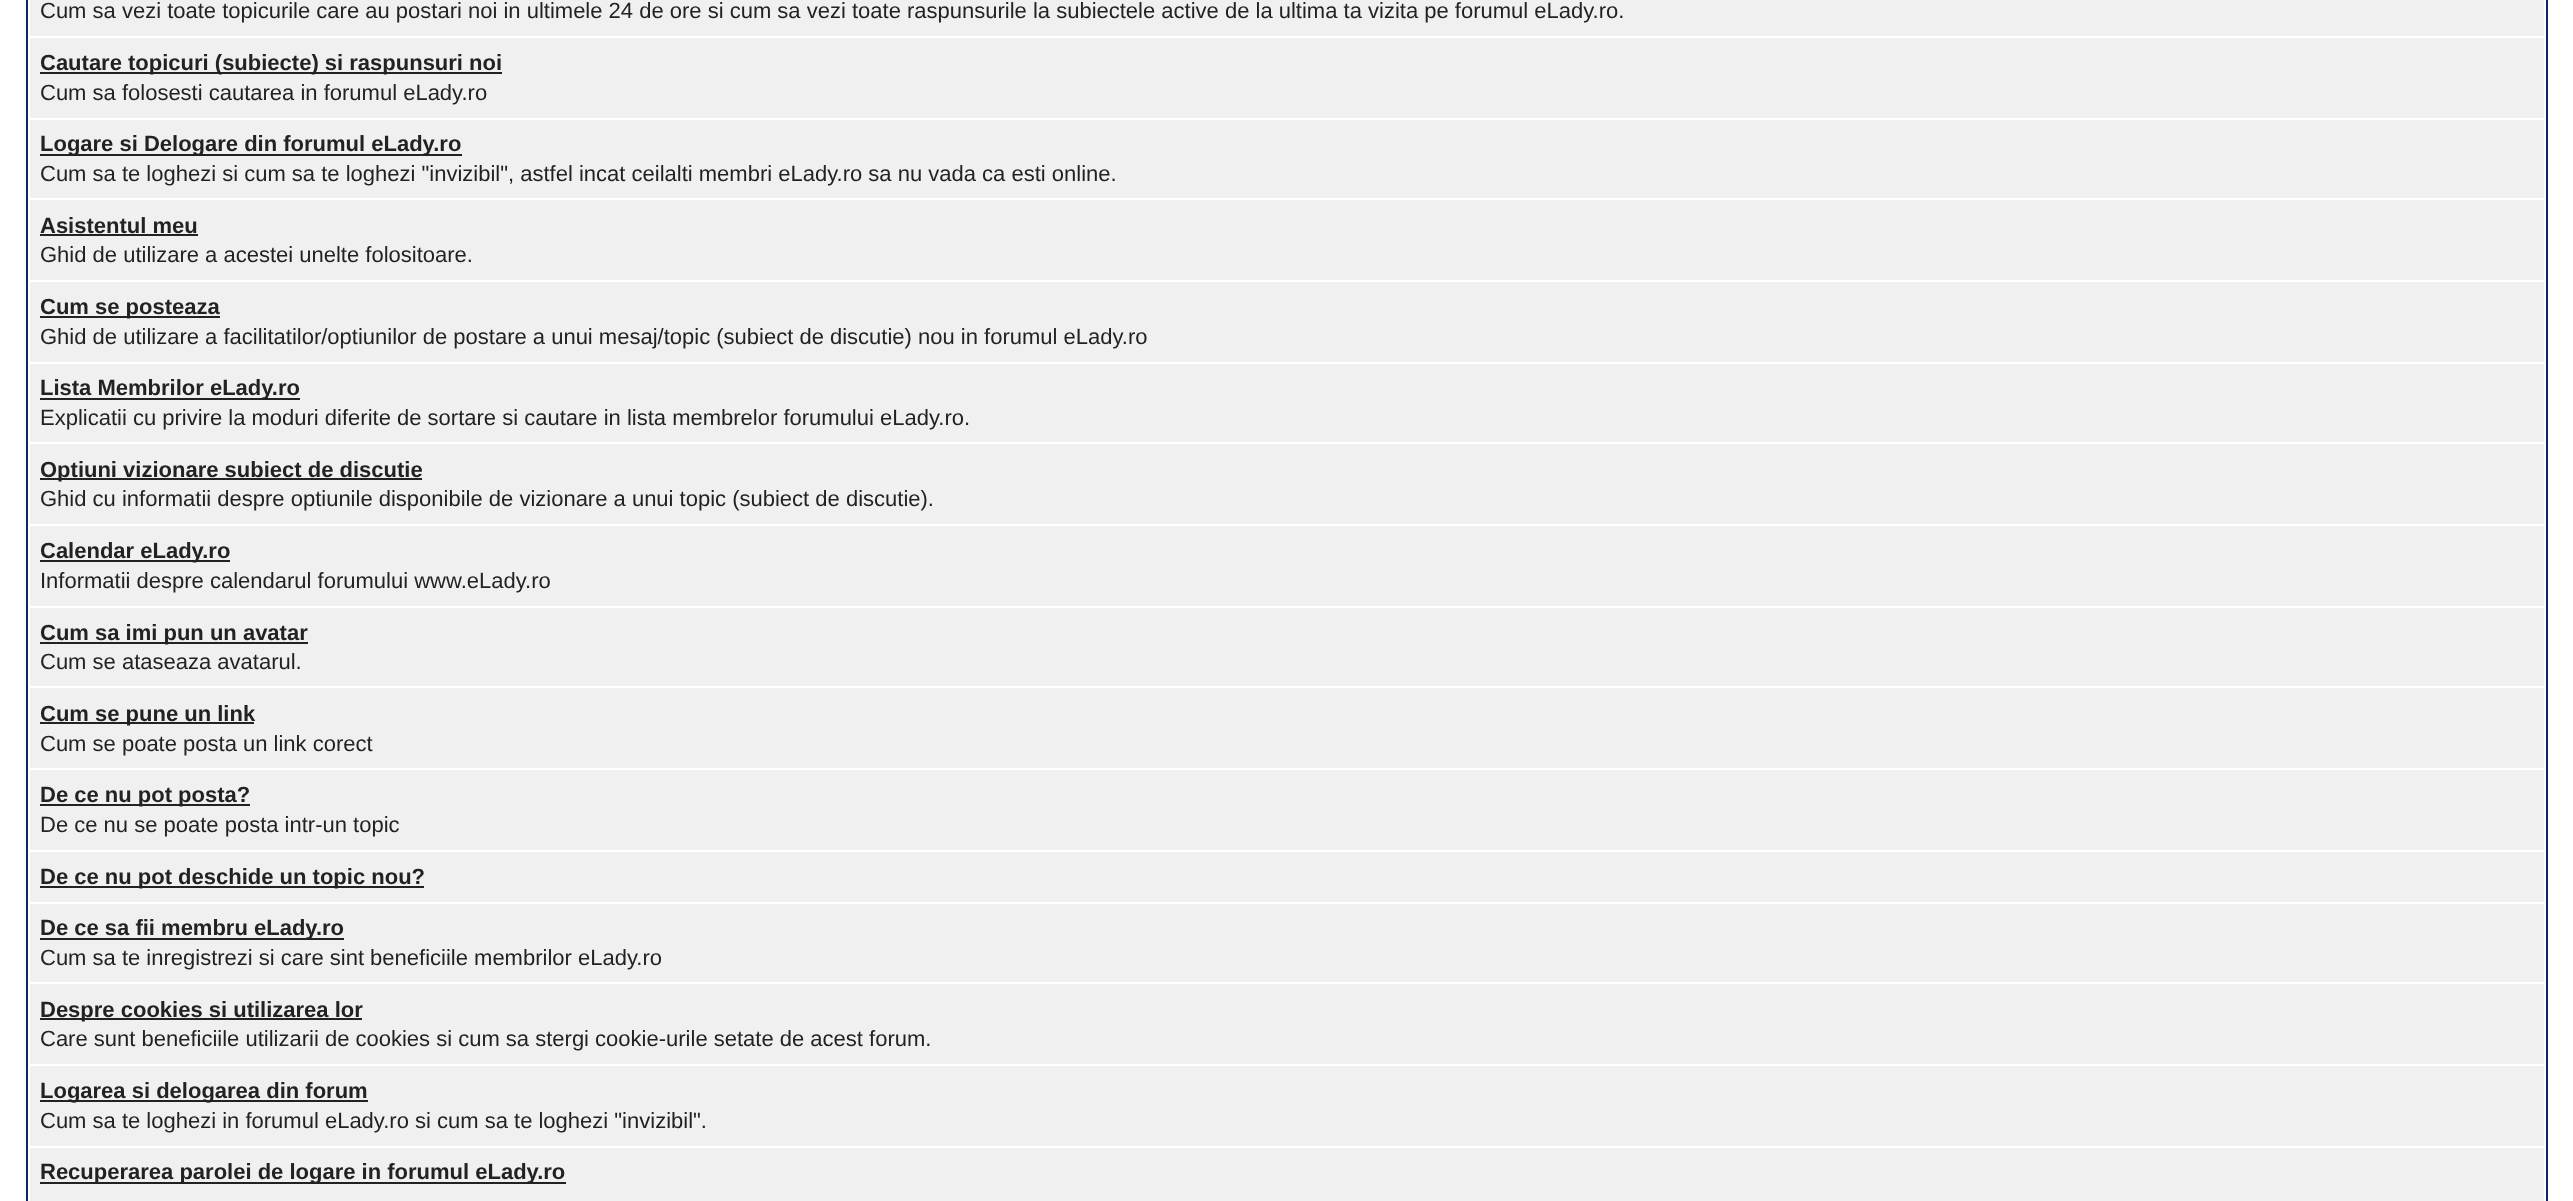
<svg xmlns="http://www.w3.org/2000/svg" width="2573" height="1201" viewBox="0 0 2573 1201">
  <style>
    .t1 { font: 22px Liberation Sans; fill: #222; }
    .t2 { font: bold 22px Liberation Sans; fill: #222; }
  </style>
  <rect width="100%" height="100%" fill="#fff"/>
  <rect x="27" y="-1" width="2520" height="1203" fill="none" stroke="#072a66" stroke-width="2"/>
  <rect x="30" y="0" width="2514" height="36" fill="#f0f0f0"/>
  <text x="40" y="18" class="t1">Cum sa vezi toate topicurile care au postari noi in ultimele 24 de ore si cum sa vezi toate raspunsurile la subiectele active de la ultima ta vizita pe forumul eLady.ro.</text>
  <rect x="30" y="38" width="2514" height="80" fill="#f0f0f0"/>
  <rect x="40" y="72" width="462" height="2" fill="#222"/>
  <text x="40" y="70" class="t2">Cautare topicuri (subiecte) si raspunsuri noi</text>
  <text x="40" y="100" class="t1">Cum sa folosesti cautarea in forumul eLady.ro</text>
  <rect x="30" y="120" width="2514" height="78" fill="#f0f0f0"/>
  <rect x="40" y="154" width="422" height="2" fill="#222"/>
  <text x="40" y="151" class="t2">Logare si Delogare din forumul eLady.ro</text>
  <text x="40" y="181" class="t1">Cum sa te loghezi si cum sa te loghezi "invizibil", astfel incat ceilalti membri eLady.ro sa nu vada ca esti online.</text>
  <rect x="30" y="200" width="2514" height="80" fill="#f0f0f0"/>
  <text x="40" y="233" class="t2">Asistentul meu</text>
  <rect x="40" y="234" width="158" height="2" fill="#222"/>
  <text x="40" y="262" class="t1">Ghid de utilizare a acestei unelte folositoare.</text>
  <rect x="30" y="282" width="2514" height="80" fill="#f0f0f0"/>
  <rect x="40" y="316" width="180" height="2" fill="#222"/>
  <text x="40" y="314" class="t2">Cum se posteaza</text>
  <text x="40" y="344" class="t1">Ghid de utilizare a facilitatilor/optiunilor de postare a unui mesaj/topic (subiect de discutie) nou in forumul eLady.ro</text>
  <rect x="30" y="364" width="2514" height="78" fill="#f0f0f0"/>
  <rect x="40" y="398" width="260" height="2" fill="#222"/>
  <text x="40" y="395" class="t2">Lista Membrilor eLady.ro</text>
  <text x="40" y="425" class="t1">Explicatii cu privire la moduri diferite de sortare si cautare in lista membrelor forumului eLady.ro.</text>
  <rect x="30" y="444" width="2514" height="80" fill="#f0f0f0"/>
  <rect x="40" y="478" width="382" height="2" fill="#222"/>
  <text x="40" y="477" class="t2">Optiuni vizionare subiect de discutie</text>
  <text x="40" y="506" class="t1">Ghid cu informatii despre optiunile disponibile de vizionare a unui topic (subiect de discutie).</text>
  <rect x="30" y="526" width="2514" height="80" fill="#f0f0f0"/>
  <rect x="40" y="560" width="190" height="2" fill="#222"/>
  <text x="40" y="558" class="t2">Calendar eLady.ro</text>
  <text x="40" y="588" class="t1">Informatii despre calendarul forumului www.eLady.ro</text>
  <rect x="30" y="608" width="2514" height="78" fill="#f0f0f0"/>
  <rect x="40" y="642" width="268" height="2" fill="#222"/>
  <text x="40" y="640" class="t2">Cum sa imi pun un avatar</text>
  <text x="40" y="669" class="t1">Cum se ataseaza avatarul.</text>
  <rect x="30" y="688" width="2514" height="80" fill="#f0f0f0"/>
  <rect x="40" y="722" width="214" height="2" fill="#222"/>
  <text x="40" y="721" class="t2">Cum se pune un link</text>
  <text x="40" y="751" class="t1">Cum se poate posta un link corect</text>
  <rect x="30" y="770" width="2514" height="80" fill="#f0f0f0"/>
  <rect x="40" y="804" width="210" height="2" fill="#222"/>
  <text x="40" y="802" class="t2">De ce nu pot posta?</text>
  <text x="40" y="832" class="t1">De ce nu se poate posta intr-un topic</text>
  <rect x="30" y="852" width="2514" height="50" fill="#f0f0f0"/>
  <rect x="40" y="886" width="384" height="2" fill="#222"/>
  <text x="40" y="884" class="t2">De ce nu pot deschide un topic nou?</text>
  <rect x="30" y="904" width="2514" height="78" fill="#f0f0f0"/>
  <rect x="40" y="938" width="304" height="2" fill="#222"/>
  <text x="40" y="935" class="t2">De ce sa fii membru eLady.ro</text>
  <text x="40" y="965" class="t1">Cum sa te inregistrezi si care sint beneficiile membrilor eLady.ro</text>
  <rect x="30" y="984" width="2514" height="80" fill="#f0f0f0"/>
  <rect x="40" y="1018" width="322" height="2" fill="#222"/>
  <text x="40" y="1017" class="t2">Despre cookies si utilizarea lor</text>
  <text x="40" y="1046" class="t1">Care sunt beneficiile utilizarii de cookies si cum sa stergi cookie-urile setate de acest forum.</text>
  <rect x="30" y="1066" width="2514" height="80" fill="#f0f0f0"/>
  <rect x="40" y="1100" width="328" height="2" fill="#222"/>
  <text x="40" y="1098" class="t2">Logarea si delogarea din forum</text>
  <text x="40" y="1128" class="t1">Cum sa te loghezi in forumul eLady.ro si cum sa te loghezi "invizibil".</text>
  <rect x="30" y="1148" width="2514" height="53" fill="#f0f0f0"/>
  <rect x="40" y="1182" width="526" height="2" fill="#222"/>
  <text x="40" y="1179" class="t2">Recuperarea parolei de logare in forumul eLady.ro</text>
</svg>
